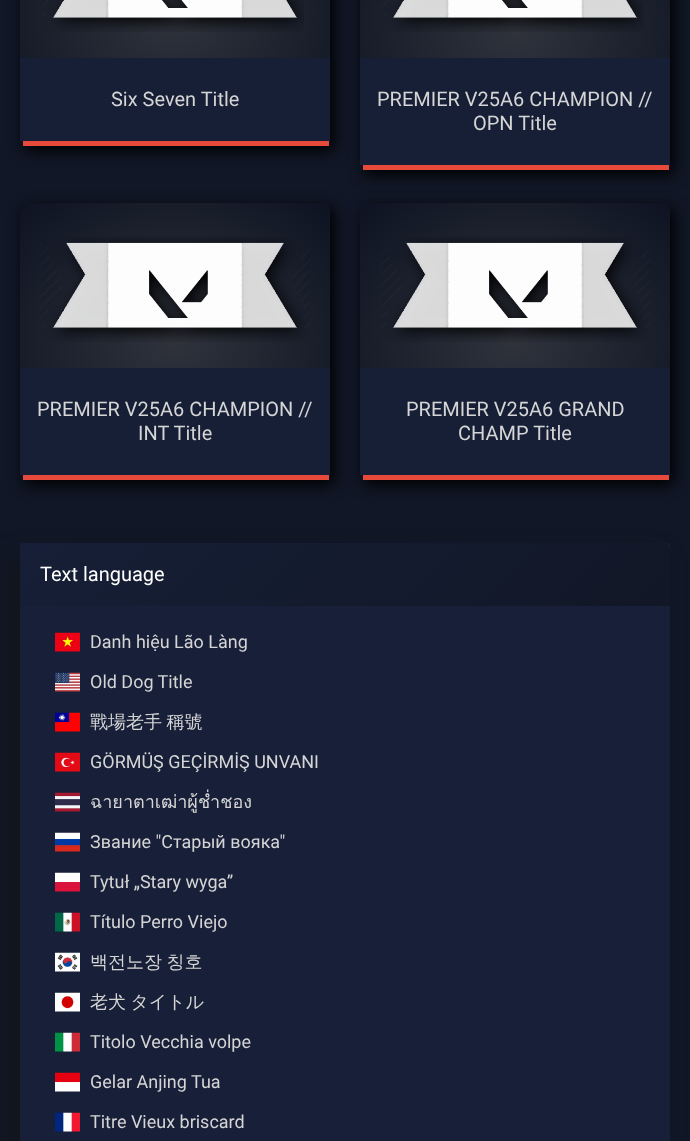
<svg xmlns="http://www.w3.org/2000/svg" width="690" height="1141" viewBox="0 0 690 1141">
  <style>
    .t1 { font: 20px Roboto; fill: #d5d5d5; }
    .t2 { font: 20px Roboto; fill: #fff; }
    .t3 { font: 18px Roboto; fill: #d5d5d5; }
    .t4 { font: 500 18px WenQuanYi Zen Hei; fill: #d5d5d5; }
    .t5 { font: 18px Loma; fill: #d5d5d5; }
  </style>
  <defs>
    <radialGradient id="g1" gradientUnits="userSpaceOnUse" cx="0" cy="0" r="1" gradientTransform="matrix(219 0 0 176 175 17)"><stop offset="0" stop-color="#30333c"/><stop offset="1" stop-color="#0d1322"/></radialGradient>
    <radialGradient id="g2" gradientUnits="userSpaceOnUse" cx="0" cy="0" r="1" gradientTransform="matrix(219 0 0 176 175 266)"><stop offset="0" stop-color="#30333c"/><stop offset="1" stop-color="#0d1322"/></radialGradient>
    <radialGradient id="g3" gradientUnits="userSpaceOnUse" cx="0" cy="0" r="1" gradientTransform="matrix(219 0 0 193 515 29)"><stop offset="0" stop-color="#30333c"/><stop offset="1" stop-color="#0d1322"/></radialGradient>
    <radialGradient id="g4" gradientUnits="userSpaceOnUse" cx="0" cy="0" r="1" gradientTransform="matrix(219 0 0 193 515 301)"><stop offset="0" stop-color="#30333c"/><stop offset="1" stop-color="#0d1322"/></radialGradient>
    <radialGradient id="g5" gradientUnits="userSpaceOnUse" cx="0" cy="0" r="1" gradientTransform="matrix(219 0 0 193 175 339)"><stop offset="0" stop-color="#30333c"/><stop offset="1" stop-color="#0d1322"/></radialGradient>
    <radialGradient id="g6" gradientUnits="userSpaceOnUse" cx="0" cy="0" r="1" gradientTransform="matrix(219 0 0 193 175 611)"><stop offset="0" stop-color="#30333c"/><stop offset="1" stop-color="#0d1322"/></radialGradient>
    <radialGradient id="g7" gradientUnits="userSpaceOnUse" cx="0" cy="0" r="1" gradientTransform="matrix(219 0 0 193 515 339)"><stop offset="0" stop-color="#30333c"/><stop offset="1" stop-color="#0d1322"/></radialGradient>
    <radialGradient id="g8" gradientUnits="userSpaceOnUse" cx="0" cy="0" r="1" gradientTransform="matrix(219 0 0 193 515 611)"><stop offset="0" stop-color="#30333c"/><stop offset="1" stop-color="#0d1322"/></radialGradient>
    <linearGradient id="g9" gradientUnits="userSpaceOnUse" x1="167" y1="396" x2="523" y2="753"><stop offset="0" stop-color="#161f37"/><stop offset="1" stop-color="#111726"/></linearGradient>
  </defs>
  <rect width="100%" height="100%" fill="#111726"/>
  <rect x="24" y="-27" width="310" height="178" rx="4" fill="#000" filter="blur(7.5px)"/>
  <rect x="20" y="0" width="310" height="58" fill="url(#g1)"/>
  <path d="M20 141H330V142C330 144 328 146 326 146H24C22 146 20 144 20 142Z" fill="url(#g2)"/>
  <rect x="23" y="141" width="306" height="5" fill="#e74a3b"/>
  <image x="42" y="0" width="262" height="32" href="images/1.png"/>
  <rect x="20" y="58" width="310" height="83" fill="#161f36"/>
  <text x="111" y="106" class="t1">Six Seven Title</text>
  <rect x="364" y="-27" width="310" height="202" rx="4" fill="#000" filter="blur(7.5px)"/>
  <rect x="360" y="0" width="310" height="58" fill="url(#g3)"/>
  <path d="M360 165H670V166C670 168 668 170 666 170H364C362 170 360 168 360 166Z" fill="url(#g4)"/>
  <rect x="363" y="165" width="306" height="5" fill="#e74a3b"/>
  <image x="382" y="0" width="262" height="32" href="images/2.png"/>
  <rect x="360" y="58" width="310" height="107" fill="#161f36"/>
  <text x="377" y="106" class="t1">PREMIER V25A6 CHAMPION //</text>
  <text x="473" y="130" class="t1">OPN Title</text>
  <rect x="24" y="208" width="310" height="277" rx="4" fill="#000" filter="blur(7.5px)"/>
  <path d="M24 203H326C328 203 330 205 330 207V475H20V207C20 205 22 203 24 203Z" fill="url(#g5)"/>
  <path d="M20 475H330V476C330 478 328 480 326 480H24C22 480 20 478 20 476Z" fill="url(#g6)"/>
  <rect x="23" y="475" width="306" height="5" fill="#e74a3b"/>
  <image x="40" y="237" width="270" height="105" href="images/3.png"/>
  <rect x="20" y="368" width="310" height="107" fill="#161f36"/>
  <text x="37" y="416" class="t1">PREMIER V25A6 CHAMPION //</text>
  <text x="138" y="440" class="t1">INT Title</text>
  <rect x="364" y="208" width="310" height="277" rx="4" fill="#000" filter="blur(7.5px)"/>
  <path d="M364 203H666C668 203 670 205 670 207V475H360V207C360 205 362 203 364 203Z" fill="url(#g7)"/>
  <path d="M360 475H670V476C670 478 668 480 666 480H364C362 480 360 478 360 476Z" fill="url(#g8)"/>
  <rect x="363" y="475" width="306" height="5" fill="#e74a3b"/>
  <image x="380" y="237" width="270" height="105" href="images/4.png"/>
  <rect x="360" y="368" width="310" height="107" fill="#161f36"/>
  <text x="406" y="416" class="t1">PREMIER V25A6 GRAND</text>
  <text x="458" y="440" class="t1">CHAMP Title</text>
  <rect x="10" y="558" width="650" height="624" rx="3" fill="#11151a" filter="blur(12.5px)"/>
  <rect x="20" y="543" width="650" height="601" rx="3" fill="#172038"/>
  <path d="M26 543H664C667.5 543 670 545.5 670 549V606H20V549C20 545.5 22.5 543 26 543Z" fill="url(#g9)"/>
  <text x="40" y="581" class="t2">Text language</text>
  <image x="55" y="632" width="25" height="20" href="images/5.png"/>
  <text x="90" y="648" class="t3">Danh hiệu Lão Làng</text>
  <image x="55" y="672" width="25" height="20" href="images/6.png"/>
  <text x="90" y="688" class="t3">Old Dog Title</text>
  <image x="55" y="712" width="25" height="20" href="images/7.png"/>
  <text x="90" y="728" word-spacing="-1" class="t4">戰場老手 稱號</text>
  <image x="55" y="752" width="25" height="20" href="images/8.png"/>
  <text x="90" y="768" class="t3">GÖRMÜŞ GEÇİRMİŞ UNVANI</text>
  <image x="55" y="792" width="25" height="20" href="images/9.png"/>
  <text x="90" y="808" class="t5">ฉายาตาเฒ่าผู้ช่ำชอง</text>
  <image x="55" y="832" width="25" height="20" href="images/10.png"/>
  <text x="90" y="848" class="t3">Звание "Старый вояка"</text>
  <image x="55" y="872" width="25" height="20" href="images/11.png"/>
  <text x="90" y="888" class="t3">Tytuł „Stary wyga”</text>
  <image x="55" y="912" width="25" height="20" href="images/12.png"/>
  <text x="90" y="928" class="t3">Título Perro Viejo</text>
  <image x="55" y="952" width="25" height="20" href="images/13.png"/>
  <text x="90" y="968" word-spacing="-1" class="t4">백전노장 칭호</text>
  <image x="55" y="992" width="25" height="20" href="images/14.png"/>
  <text x="90" y="1008" word-spacing="-1" class="t4">老犬 タイトル</text>
  <image x="55" y="1032" width="25" height="20" href="images/15.png"/>
  <text x="90" y="1048" class="t3">Titolo Vecchia volpe</text>
  <image x="55" y="1072" width="25" height="20" href="images/16.png"/>
  <text x="90" y="1088" class="t3">Gelar Anjing Tua</text>
  <image x="55" y="1112" width="25" height="20" href="images/17.png"/>
  <text x="90" y="1128" class="t3">Titre Vieux briscard</text>
</svg>
